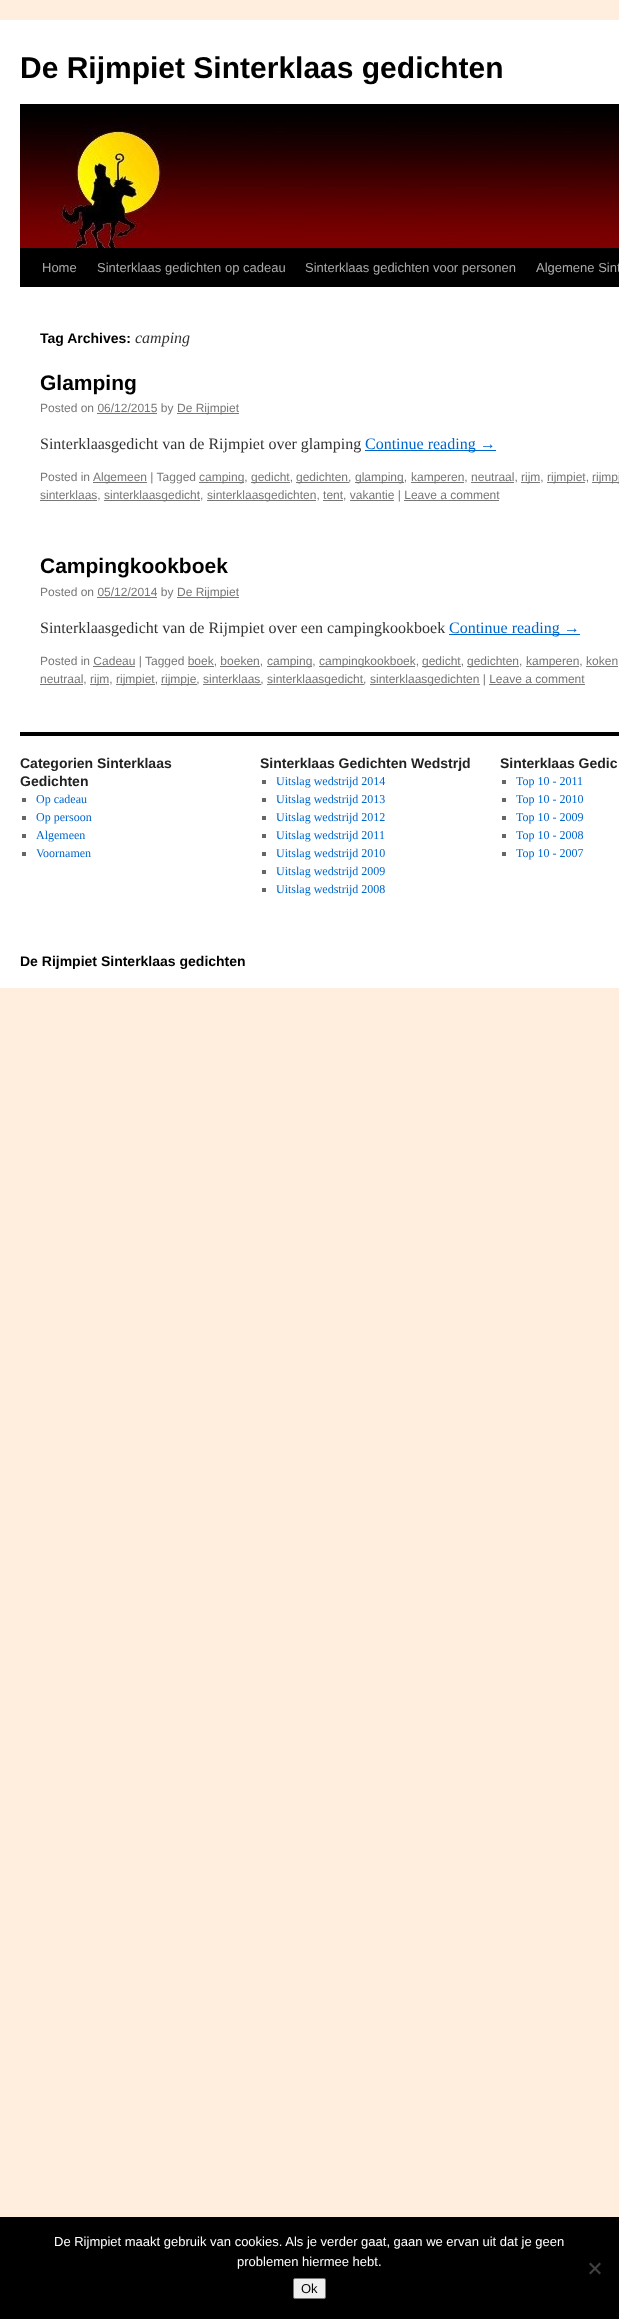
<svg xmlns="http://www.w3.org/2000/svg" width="619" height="2319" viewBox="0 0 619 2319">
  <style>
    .t1 { font: bold 30px Liberation Sans; fill: #000; }
    .t2 { font: 13px Liberation Sans; fill: #aaa; }
    .t3 { font: bold 14px Liberation Sans; fill: #000; }
    .t4 { font: italic 16px Liberation Serif; fill: #333; }
    .t5 { font: bold 21px Liberation Sans; fill: #000; }
    .t6 { font: 12px Liberation Sans; fill: #777; }
    .t7 { font: 16px Liberation Serif; fill: #333; }
    .t8 { font: 16px Liberation Serif; fill: #06c; }
    .t9 { font: bold 14px Liberation Sans; fill: #222; }
    .t10 { font: 12px Liberation Serif; fill: #06c; }
    .t11 { font: 13px Liberation Sans; fill: #fff; }
    .t12 { font: 13px Liberation Sans; fill: #000; }
  </style>
  <rect width="100%" height="100%" fill="#fed"/>
  <rect x="0" y="20" width="619" height="968" fill="#fff"/>
  <text x="20" y="78" class="t1">De Rijmpiet Sinterklaas gedichten</text>
  <rect x="20" y="104" width="599" height="4" fill="#000"/>
  <rect x="20" y="248" width="599" height="39" fill="#000"/>
  <image x="20" y="108" width="599" height="140" href="images/1.png"/>
  <text x="42" y="272" class="t2">Home</text>
  <text x="97" y="272" class="t2">Sinterklaas gedichten op cadeau</text>
  <text x="305" y="272" class="t2">Sinterklaas gedichten voor personen</text>
  <text x="536" y="272" class="t2">Algemene Sint</text>
  <text x="40" y="343" class="t3">Tag Archives:</text>
  <text x="135" y="343" class="t4">camping</text>
  <text x="40" y="390" class="t5">Glamping</text>
  <text x="40" y="412" class="t6">Posted on 06/12/2015 by</text>
  <rect x="177" y="413" width="62" height="1" fill="#777"/>
  <text x="177" y="412" class="t6">De Rijmpiet</text>
  <rect x="97" y="413" width="60" height="1" fill="#777"/>
  <text x="40" y="449" class="t7">Sinterklaasgedicht van de Rijmpiet over glamping</text>
  <rect x="365" y="450" width="131" height="1" fill="#06c"/>
  <text x="365" y="449" class="t8">Continue reading →</text>
  <text x="40" y="481" class="t6">Posted in</text>
  <rect x="93" y="482" width="54" height="1" fill="#777"/>
  <text x="93" y="481" class="t6">Algemeen | Tagged</text>
  <rect x="199" y="482" width="45" height="1" fill="#777"/>
  <text x="199" y="481" class="t6">camping,</text>
  <rect x="251" y="482" width="39" height="1" fill="#777"/>
  <text x="251" y="481" class="t6">gedicht,</text>
  <rect x="296" y="482" width="53" height="1" fill="#777"/>
  <text x="296" y="481" class="t6">gedichten,</text>
  <rect x="355" y="482" width="49" height="1" fill="#777"/>
  <text x="355" y="481" class="t6">glamping,</text>
  <rect x="411" y="482" width="53" height="1" fill="#777"/>
  <text x="411" y="481" class="t6">kamperen, neutraal,</text>
  <rect x="471" y="482" width="43" height="1" fill="#777"/>
  <rect x="521" y="482" width="19" height="1" fill="#777"/>
  <text x="521" y="481" class="t6">rijm,</text>
  <rect x="547" y="482" width="38" height="1" fill="#777"/>
  <text x="547" y="481" class="t6">rijmpiet,</text>
  <rect x="592" y="482" width="27" height="1" fill="#777"/>
  <text x="592" y="481" class="t6">rijmpj</text>
  <rect x="40" y="500" width="57" height="1" fill="#777"/>
  <text x="40" y="499" class="t6">sinterklaas,</text>
  <rect x="104" y="500" width="96" height="1" fill="#777"/>
  <text x="104" y="499" class="t6">sinterklaasgedicht,</text>
  <rect x="207" y="500" width="109" height="1" fill="#777"/>
  <text x="207" y="499" class="t6">sinterklaasgedichten, tent, vakantie | Leave a comment</text>
  <rect x="323" y="500" width="20" height="1" fill="#777"/>
  <rect x="350" y="500" width="44" height="1" fill="#777"/>
  <rect x="404" y="500" width="95" height="1" fill="#777"/>
  <text x="40" y="573" class="t5">Campingkookboek</text>
  <text x="40" y="596" class="t6">Posted on 05/12/2014 by</text>
  <rect x="177" y="597" width="62" height="1" fill="#777"/>
  <text x="177" y="596" class="t6">De Rijmpiet</text>
  <rect x="97" y="597" width="60" height="1" fill="#777"/>
  <text x="40" y="633" class="t7">Sinterklaasgedicht van de Rijmpiet over een campingkookboek</text>
  <rect x="449" y="634" width="131" height="1" fill="#06c"/>
  <text x="449" y="633" class="t8">Continue reading →</text>
  <text x="40" y="665" class="t6">Posted in Cadeau | Tagged boek, boeken,</text>
  <rect x="93" y="666" width="42" height="1" fill="#777"/>
  <rect x="267" y="666" width="45" height="1" fill="#777"/>
  <text x="267" y="665" class="t6">camping,</text>
  <rect x="220" y="666" width="40" height="1" fill="#777"/>
  <rect x="319" y="666" width="96" height="1" fill="#777"/>
  <text x="319" y="665" class="t6">campingkookboek,</text>
  <rect x="422" y="666" width="39" height="1" fill="#777"/>
  <text x="422" y="665" class="t6">gedicht,</text>
  <rect x="467" y="666" width="52" height="1" fill="#777"/>
  <text x="467" y="665" class="t6">gedichten,</text>
  <rect x="526" y="666" width="53" height="1" fill="#777"/>
  <text x="526" y="665" class="t6">kamperen, koken</text>
  <rect x="586" y="666" width="32" height="1" fill="#777"/>
  <rect x="40" y="684" width="43" height="1" fill="#777"/>
  <text x="40" y="683" class="t6">neutraal,</text>
  <rect x="90" y="684" width="19" height="1" fill="#777"/>
  <text x="90" y="683" class="t6">rijm,</text>
  <rect x="116" y="684" width="39" height="1" fill="#777"/>
  <text x="116" y="683" class="t6">rijmpiet,</text>
  <rect x="161" y="684" width="36" height="1" fill="#777"/>
  <text x="161" y="683" class="t6">rijmpje, sinterklaas,</text>
  <rect x="188" y="666" width="26" height="1" fill="#777"/>
  <rect x="203" y="684" width="58" height="1" fill="#777"/>
  <rect x="267" y="684" width="97" height="1" fill="#777"/>
  <text x="267" y="683" class="t6">sinterklaasgedicht,</text>
  <rect x="370" y="684" width="110" height="1" fill="#777"/>
  <text x="370" y="683" class="t6">sinterklaasgedichten | Leave a comment</text>
  <rect x="489" y="684" width="96" height="1" fill="#777"/>
  <rect x="20" y="732" width="599" height="4" fill="#000"/>
  <text x="20" y="768" class="t9">Categorien Sinterklaas</text>
  <text x="20" y="786" class="t9">Gedichten</text>
  <rect x="22" y="798" width="4" height="4" fill="#666"/>
  <text x="36" y="803" class="t10">Op cadeau</text>
  <rect x="22" y="816" width="4" height="4" fill="#666"/>
  <text x="36" y="821" class="t10">Op persoon</text>
  <rect x="22" y="834" width="4" height="4" fill="#666"/>
  <text x="36" y="839" class="t10">Algemeen</text>
  <rect x="22" y="852" width="4" height="4" fill="#666"/>
  <text x="36" y="857" class="t10">Voornamen</text>
  <text x="260" y="768" class="t9">Sinterklaas Gedichten Wedstrjd</text>
  <rect x="262" y="780" width="4" height="4" fill="#666"/>
  <text x="276" y="785" class="t10">Uitslag wedstrijd 2014</text>
  <rect x="262" y="798" width="4" height="4" fill="#666"/>
  <text x="276" y="803" class="t10">Uitslag wedstrijd 2013</text>
  <rect x="262" y="816" width="4" height="4" fill="#666"/>
  <text x="276" y="821" class="t10">Uitslag wedstrijd 2012</text>
  <rect x="262" y="834" width="4" height="4" fill="#666"/>
  <text x="276" y="839" class="t10">Uitslag wedstrijd 2011</text>
  <rect x="262" y="852" width="4" height="4" fill="#666"/>
  <text x="276" y="857" class="t10">Uitslag wedstrijd 2010</text>
  <rect x="262" y="870" width="4" height="4" fill="#666"/>
  <text x="276" y="875" class="t10">Uitslag wedstrijd 2009</text>
  <rect x="262" y="888" width="4" height="4" fill="#666"/>
  <text x="276" y="893" class="t10">Uitslag wedstrijd 2008</text>
  <text x="500" y="768" class="t9">Sinterklaas Gedic</text>
  <rect x="502" y="780" width="4" height="4" fill="#666"/>
  <text x="516" y="785" class="t10">Top 10 - 2011</text>
  <rect x="502" y="798" width="4" height="4" fill="#666"/>
  <text x="516" y="803" class="t10">Top 10 - 2010</text>
  <rect x="502" y="816" width="4" height="4" fill="#666"/>
  <text x="516" y="821" class="t10">Top 10 - 2009</text>
  <rect x="502" y="834" width="4" height="4" fill="#666"/>
  <text x="516" y="839" class="t10">Top 10 - 2008</text>
  <rect x="502" y="852" width="4" height="4" fill="#666"/>
  <text x="516" y="857" class="t10">Top 10 - 2007</text>
  <text x="20" y="966" class="t3">De Rijmpiet Sinterklaas gedichten</text>
  <rect x="0" y="2217" width="619" height="102" fill="#000"/>
  <text x="54" y="2246" class="t11">De Rijmpiet maakt gebruik van cookies. Als je verder gaat, gaan we ervan uit dat je geen</text>
  <text x="237" y="2266" class="t11">problemen hiermee hebt.</text>
  <path d="M599.5 2262.5L601 2264L590.5 2274.5L589 2273Z" fill="#404040"/>
  <path d="M589 2264L590.5 2262.5L601 2273L599.5 2274.5Z" fill="#404040"/>
  <rect x="293.5" y="2278.5" width="32" height="20" rx="1.5" fill="#efefef" stroke="#767676"/>
  <text x="301" y="2293" class="t12">Ok</text>
</svg>
